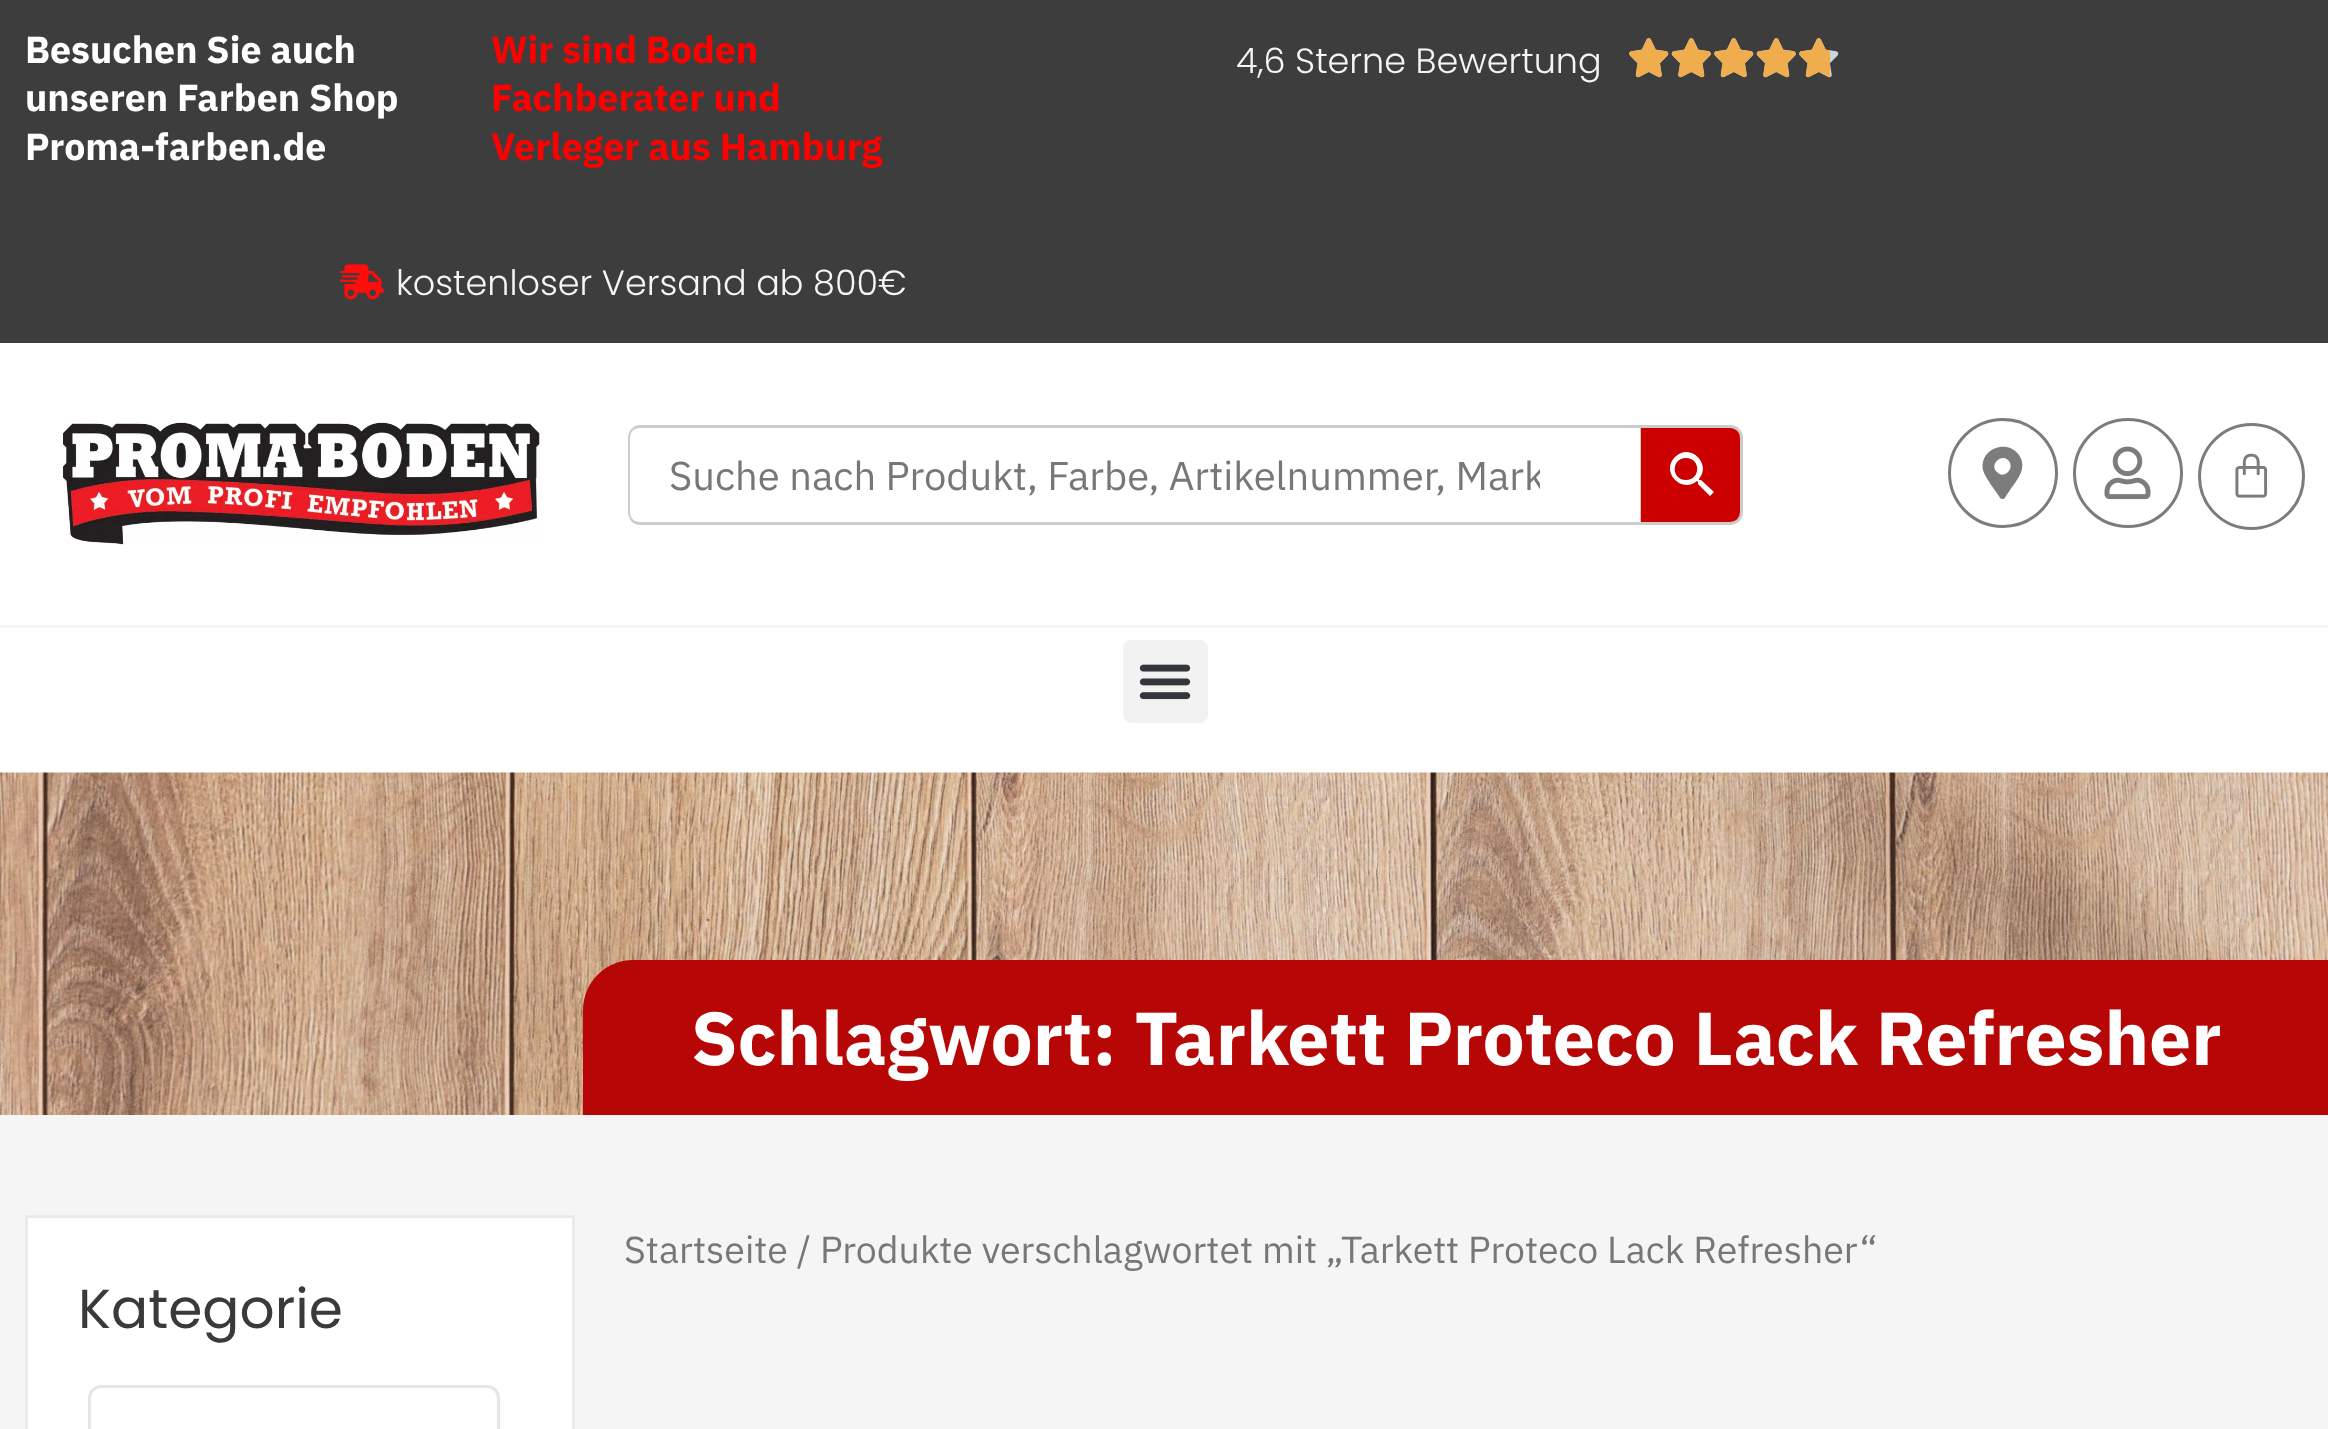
<svg xmlns="http://www.w3.org/2000/svg" width="2328" height="1429" viewBox="0 0 2328 1429">
  <style>
    .t1 { font: bold 37.5px IBM Plex Sans; fill: #fff; }
    .t2 { font: bold 37.5px IBM Plex Sans; fill: #f00; }
    .t3 { font: 300 35px Poppins; fill: #f5f5f5; }
    .t4 { font: 40px IBM Plex Sans; fill: #777; }
    .t5 { font: bold 75px IBM Plex Sans; fill: #fff; }
    .t6 { font: 37.5px IBM Plex Sans; fill: #777; }
    .t7 { font: 55px Poppins; fill: #3a3a3a; }
  </style>
  <defs>
    <clipPath id="clip1"><rect x="668" y="450" width="872" height="50"/></clipPath>
  </defs>
  <rect width="100%" height="100%" fill="#f5f5f5"/>
  <rect x="0" y="0" width="2328" height="343" fill="#3d3d3d"/>
  <text x="25" y="63" class="t1">Besuchen Sie auch</text>
  <text x="25" y="111" class="t1">unseren Farben Shop</text>
  <text x="25" y="160" class="t1">Proma-farben.de</text>
  <text x="491" y="63" class="t2">Wir sind Boden</text>
  <text x="491" y="111" class="t2">Fachberater und</text>
  <text x="491" y="160" class="t2">Verleger aus Hamburg</text>
  <text x="1236" y="73" class="t3">4,6 Sterne Bewertung</text>
  <image x="1629" y="38" width="40" height="40" href="images/1.png"/>
  <image x="1629" y="38" width="40" height="40" href="images/2.png"/>
  <image x="1671" y="38" width="40" height="40" href="images/3.png"/>
  <image x="1671" y="38" width="40" height="40" href="images/4.png"/>
  <image x="1714" y="38" width="40" height="40" href="images/1.png"/>
  <image x="1714" y="38" width="40" height="40" href="images/2.png"/>
  <image x="1756" y="38" width="40" height="40" href="images/3.png"/>
  <image x="1756" y="38" width="40" height="40" href="images/4.png"/>
  <image x="1799" y="38" width="40" height="40" href="images/1.png"/>
  <image x="1799" y="38" width="31" height="40" href="images/5.png"/>
  <image x="340" y="264" width="44" height="36" href="images/6.png"/>
  <text x="396" y="295" class="t3">kostenloser Versand ab 800€</text>
  <rect x="0" y="343" width="2328" height="430" fill="#fff"/>
  <image x="63" y="422" width="477" height="123" href="images/7.png"/>
  <path d="M1639.5 426.5H1730C1736.5 426.5 1741.5 431.5 1741.5 438V512C1741.5 518.5 1736.5 523.5 1730 523.5H1639.5Z" fill="#c00" stroke="#ccc" stroke-width="3"/>
  <path d="M641 425H1640V525H641C634 525 628 519 628 512V438C628 431 634 425 641 425Z" fill="#fff"/>
  <path d="M640 425H1640V525H640C633 525 628 519 628 512V438C628 431 633 425 640 425ZM640 428H1640V522H640C634 522 630 518 630 512V438C630 432 634 428 640 428Z" fill="#ccc" fill-rule="evenodd"/>
  <g clip-path="url(#clip1)">
    <text x="669" y="490" class="t4">Suche nach Produkt, Farbe, Artikelnummer, Mark</text>
  </g>
  <path d="M1701 480H1699V479C1712 464 1690 442 1675 457C1660 472 1682 494 1697 481L1698 482V484L1710 496L1714 492ZM1686 480C1671 480 1671 458 1686 458C1701 458 1701 480 1686 480Z" fill="#fff"/>
  <circle cx="2003" cy="473" r="53.5" fill="none" stroke="#7c7c7c" stroke-width="3"/>
  <path d="M2000 498C1996 491 1985 478 1983 470C1979 449 2007 438 2019 455C2028 468 2017 480 2010 490L2004 499C2003 499 2001 499 2000 498ZM1997 472C2004 480 2016 468 2008 460C2001 453 1989 465 1997 472Z" fill="#7c7c7c"/>
  <circle cx="2128" cy="473" r="53.5" fill="none" stroke="#7c7c7c" stroke-width="3"/>
  <image x="2104" y="446" width="47" height="54" href="images/8.png"/>
  <circle cx="2251.5" cy="476.5" r="52" fill="none" stroke="#7c7c7c" stroke-width="3"/>
  <image x="2235" y="453" width="33" height="45" href="images/9.png"/>
  <rect x="0" y="625" width="2328" height="3" fill="#f5f5f5"/>
  <rect x="1123" y="640" width="85" height="83" rx="8" fill="#f2f2f2"/>
  <image x="1139" y="664" width="52" height="36" href="images/10.png"/>
  <image x="0" y="772" width="2328" height="343" href="images/11.png"/>
  <path d="M633 960H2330V1115H583V1010C583 982.5 605.5 960 633 960Z" fill="#b70606"/>
  <text x="691" y="1065" class="t5">Schlagwort: Tarkett Proteco Lack Refresher</text>
  <text x="624" y="1263" class="t6">Startseite / Produkte verschlagwortet mit „Tarkett Proteco Lack Refresher“</text>
  <rect x="26.5" y="1216.5" width="547" height="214" fill="#fff" stroke="#ebebeb" stroke-width="3"/>
  <text x="78" y="1328" class="t7">Kategorie</text>
  <rect x="89.5" y="1386.5" width="409" height="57" rx="11.5" fill="none" stroke="#e6e6e6" stroke-width="3"/>
</svg>
